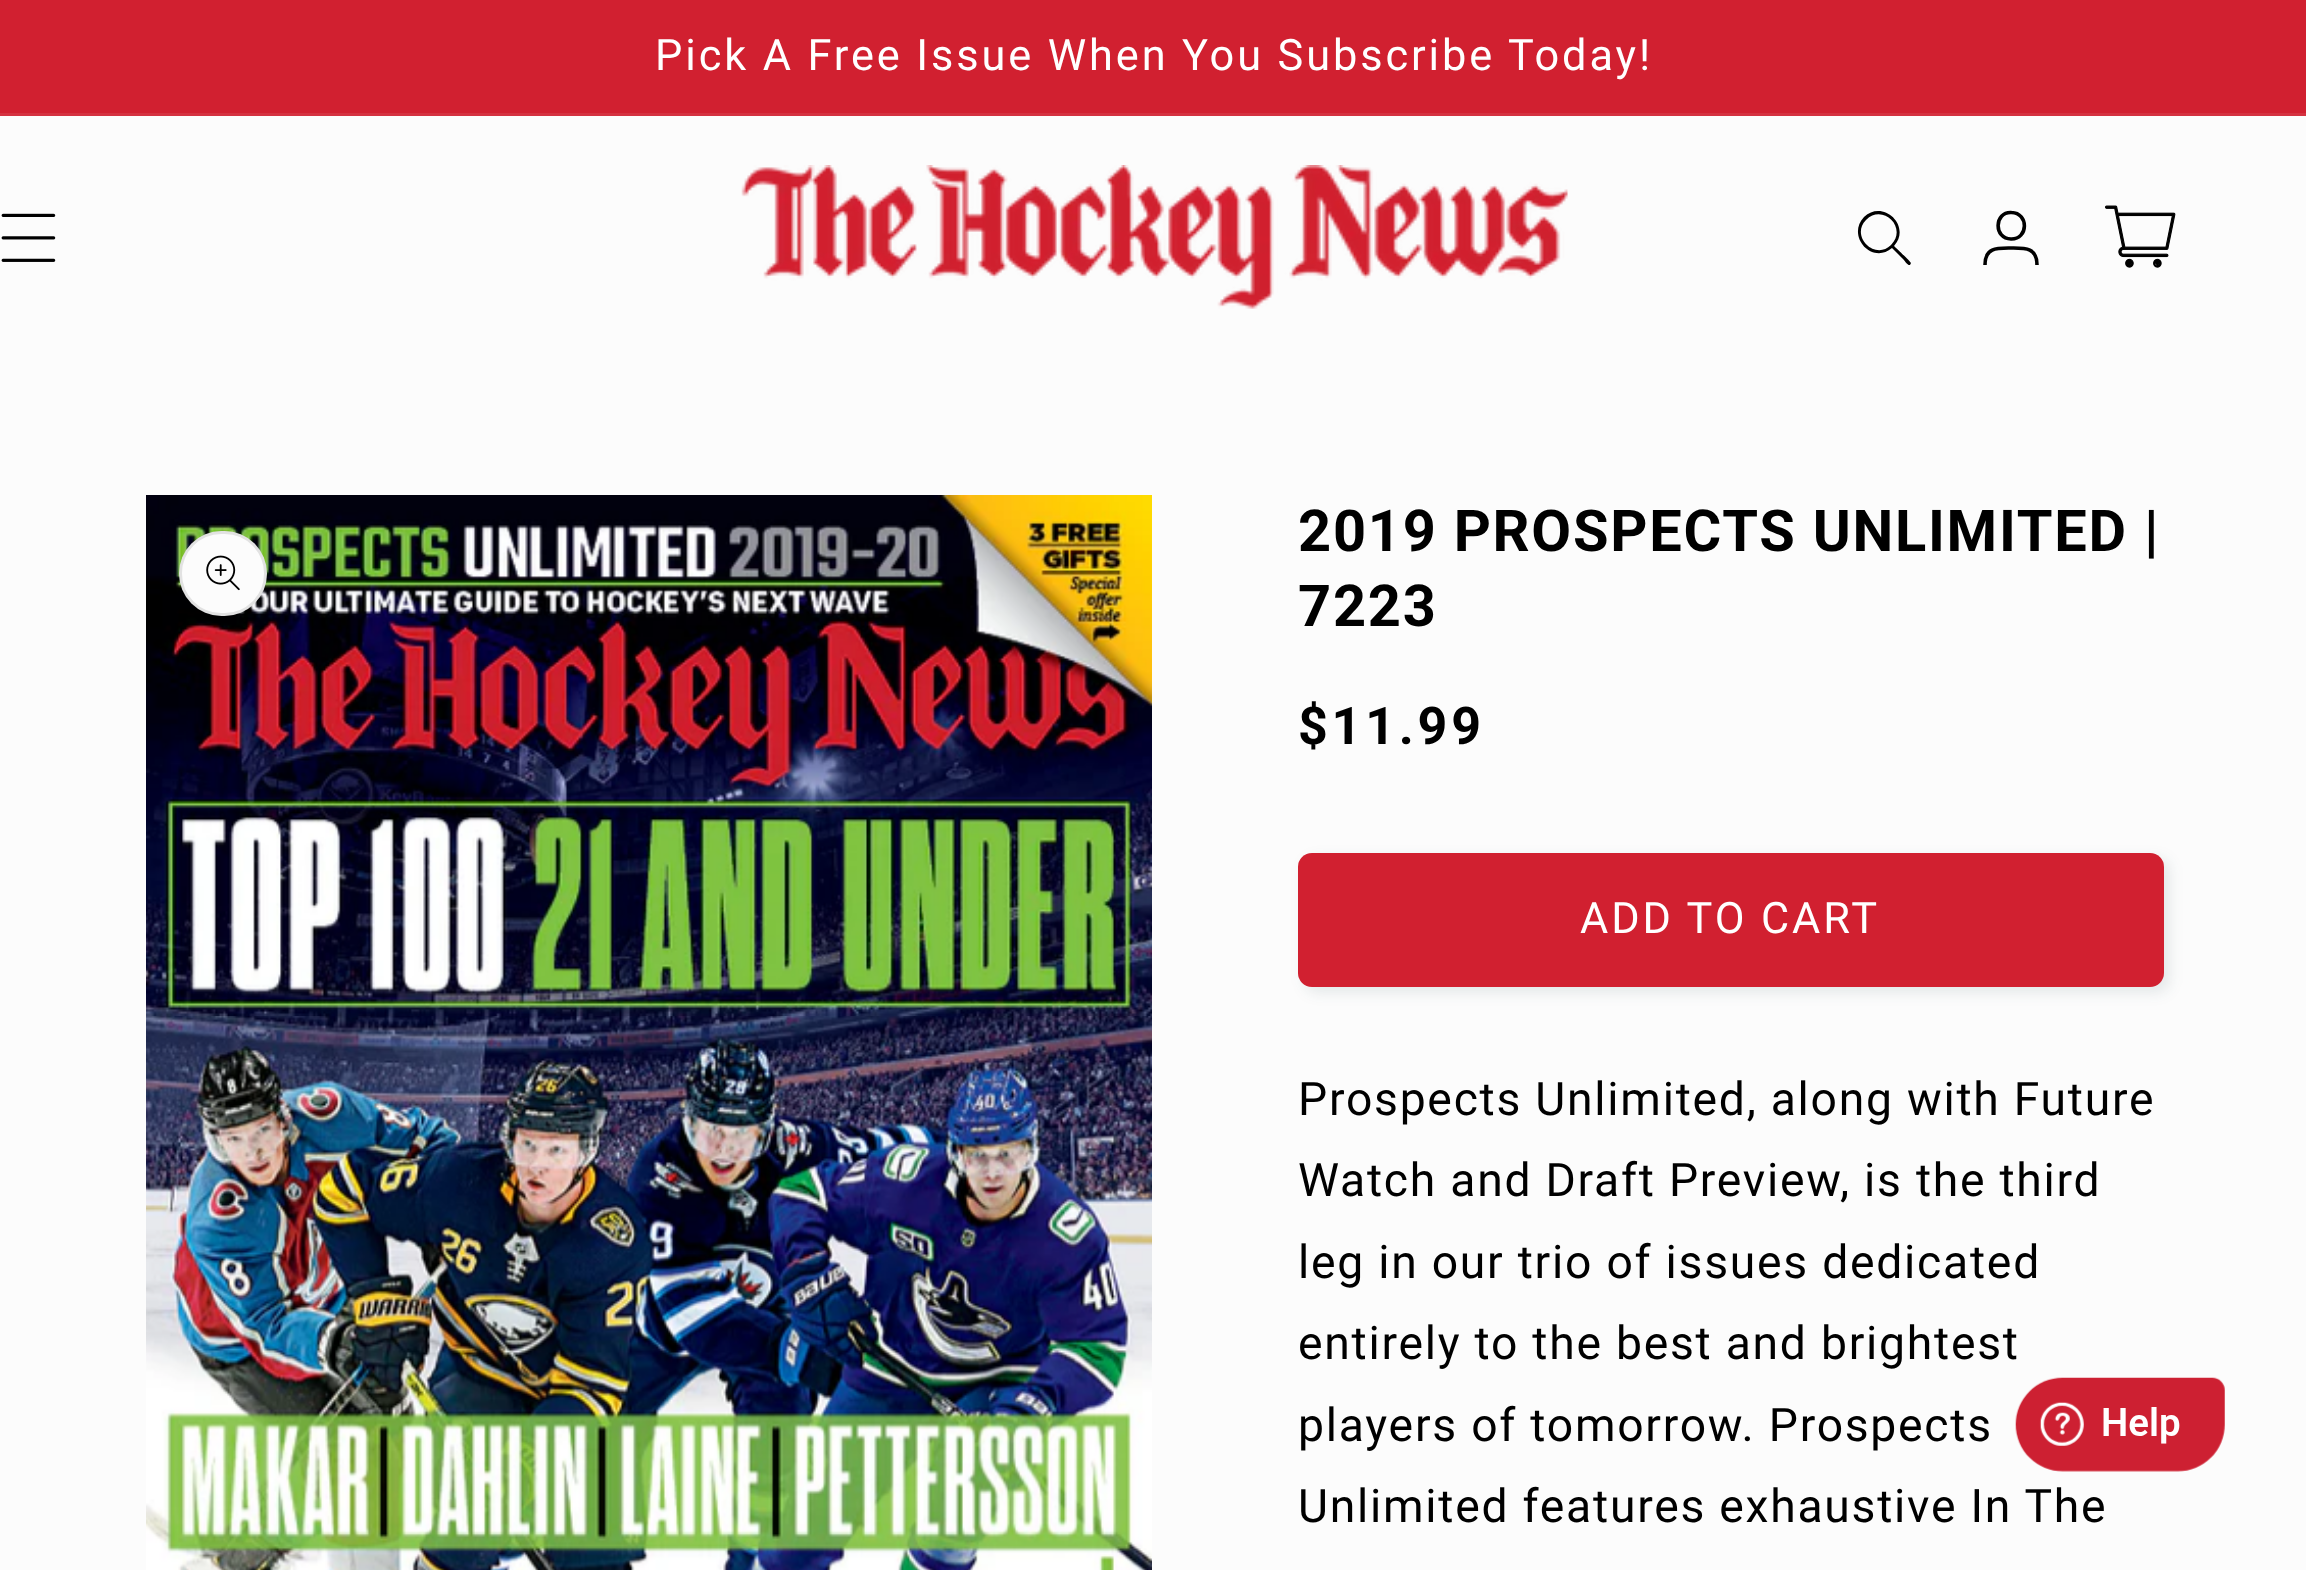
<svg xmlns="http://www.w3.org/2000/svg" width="2306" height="1570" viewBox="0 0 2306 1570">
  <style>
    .t1 { font: 43.3px Roboto; letter-spacing: 2.9px; fill: #fff; }
    .t2 { font: bold 57.75px Roboto; letter-spacing: 1.75px; fill: #000; }
    .t3 { font: bold 52px Roboto; letter-spacing: 3.75px; fill: #000; }
    .t4 { font: 46.25px Roboto; letter-spacing: 1.75px; fill: #000; }
  </style>
  <rect width="100%" height="100%" fill="#fcfcfc"/>
  <rect x="0" y="0" width="2306" height="113" fill="#d12030"/>
  <rect x="0" y="113" width="2306" height="3" fill="#d43240"/>
  <text x="655" y="70" class="t1">Pick A Free Issue When You Subscribe Today!</text>
  <image x="1" y="213" width="55" height="49" href="images/1.png"/>
  <image x="741" y="165" width="827" height="144" href="images/2.png"/>
  <path d="M1891 245C1875 261 1850 236 1866 220C1883 203 1908 228 1891 245ZM1892 248C1872 265 1846 236 1864 217C1883 199 1912 226 1894 246C1896 248 1911 262 1911 263L1910 265C1908 266 1904 260 1903 259Z" fill="#000" fill-rule="evenodd"/>
  <path d="M1985 265C1985 247 1997.5 248 2011 248C2024.5 248 2037 247 2037 265M2011 239C2028.5 239.5 2029 213 2011.5 212.5C1994 211.5 1993.5 239 2011 239Z" fill="none" stroke="#000" stroke-width="3.6"/>
  <image x="2105" y="205" width="71" height="63" href="images/3.png"/>
  <image x="146" y="495" width="1006" height="1075" href="images/4.png"/>
  <rect x="179" y="531" width="88" height="85" rx="42.5" fill="#fcfcfc"/>
  <rect x="180.5" y="532.5" width="85" height="82" rx="41" fill="none" stroke="#0000001a" stroke-width="3"/>
  <image x="206" y="555" width="34" height="36" href="images/5.png"/>
  <text x="1298" y="551" class="t2">2019 PROSPECTS UNLIMITED |</text>
  <text x="1298" y="626" class="t2">7223</text>
  <text x="1298" y="744" class="t3">$11.99</text>
  <rect x="1304" y="858" width="866" height="135" rx="14" fill="#1039481a" filter="blur(7px)"/>
  <rect x="1298" y="853" width="866" height="134" rx="14" fill="#d12030"/>
  <text x="1580" y="933" class="t1">ADD TO CART</text>
  <text x="1298" y="1115" class="t4">Prospects Unlimited, along with Future</text>
  <text x="1298" y="1196" class="t4">Watch and Draft Preview, is the third</text>
  <text x="1298" y="1278" class="t4">leg in our trio of issues dedicated</text>
  <text x="1298" y="1359" class="t4">entirely to the best and brightest</text>
  <text x="1298" y="1441" class="t4">players of tomorrow. Prospects</text>
  <text x="1298" y="1522" class="t4">Unlimited features exhaustive In The</text>
  <image x="2015" y="1377" width="210" height="95" href="images/6.png"/>
</svg>
